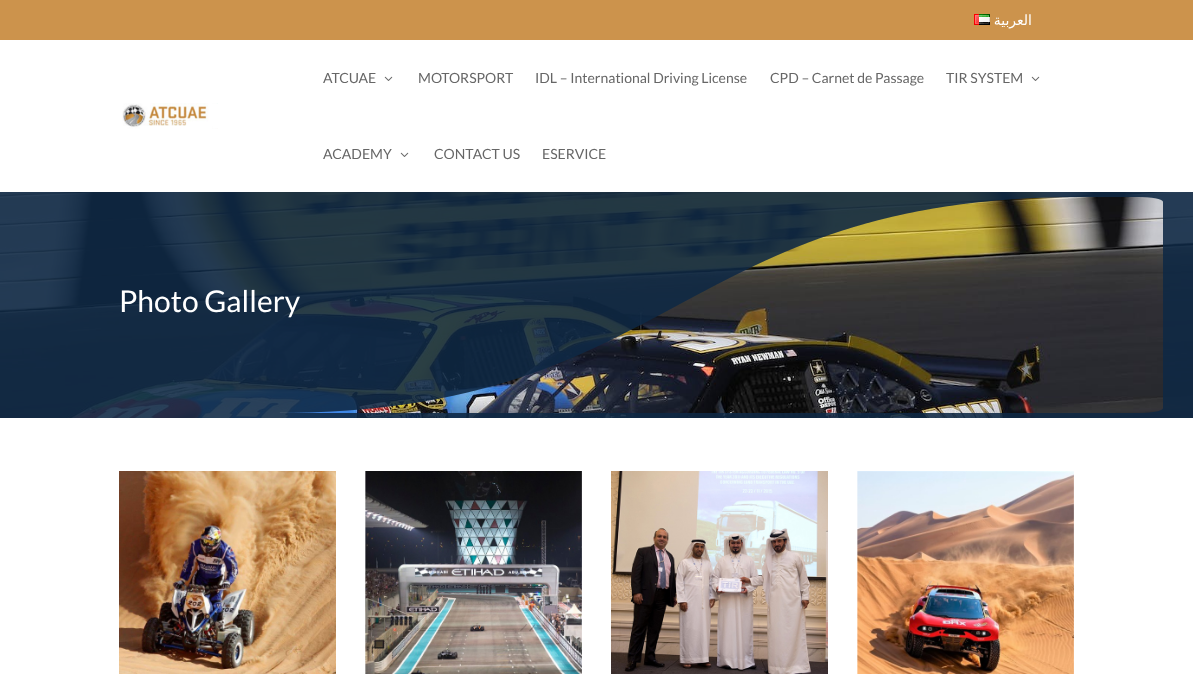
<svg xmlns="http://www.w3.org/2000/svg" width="1193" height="674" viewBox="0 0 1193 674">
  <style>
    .t1 { font: 14px DejaVu Sans; direction: rtl; fill: #fff; }
    .t2 { font: 14px Lato; fill: #666; }
    .t3 { font: 30px Lato; fill: #fff; }
  </style>
  <rect width="100%" height="100%" fill="#fff"/>
  <rect x="0" y="0" width="1193" height="40" fill="#cc934c"/>
  <image x="974" y="14" width="16" height="11" href="images/1.png"/>
  <text x="1032" y="25" class="t1">العربية</text>
  <image x="122" y="103" width="96" height="26" href="images/2.png"/>
  <text x="323" y="83" class="t2">ATCUAE</text>
  <image x="384" y="76" width="9" height="5" href="images/3.png"/>
  <text x="418" y="83" class="t2">MOTORSPORT</text>
  <text x="535" y="83" class="t2">IDL – International Driving License</text>
  <text x="770" y="83" class="t2">CPD – Carnet de Passage</text>
  <text x="946" y="83" class="t2">TIR SYSTEM</text>
  <image x="1031" y="76" width="9" height="5" href="images/3.png"/>
  <text x="323" y="159" class="t2">ACADEMY</text>
  <image x="400" y="152" width="9" height="5" href="images/3.png"/>
  <text x="434" y="159" class="t2">CONTACT US</text>
  <text x="542" y="159" class="t2">ESERVICE</text>
  <image x="0" y="192" width="1193" height="226" href="images/4.png"/>
  <text x="119" y="312" class="t3">Photo Gallery</text>
  <image x="119" y="471" width="217" height="203" href="images/5.png"/>
  <image x="365" y="471" width="217" height="203" href="images/6.png"/>
  <image x="611" y="471" width="217" height="203" href="images/7.png"/>
  <image x="857" y="471" width="217" height="203" href="images/8.png"/>
</svg>
